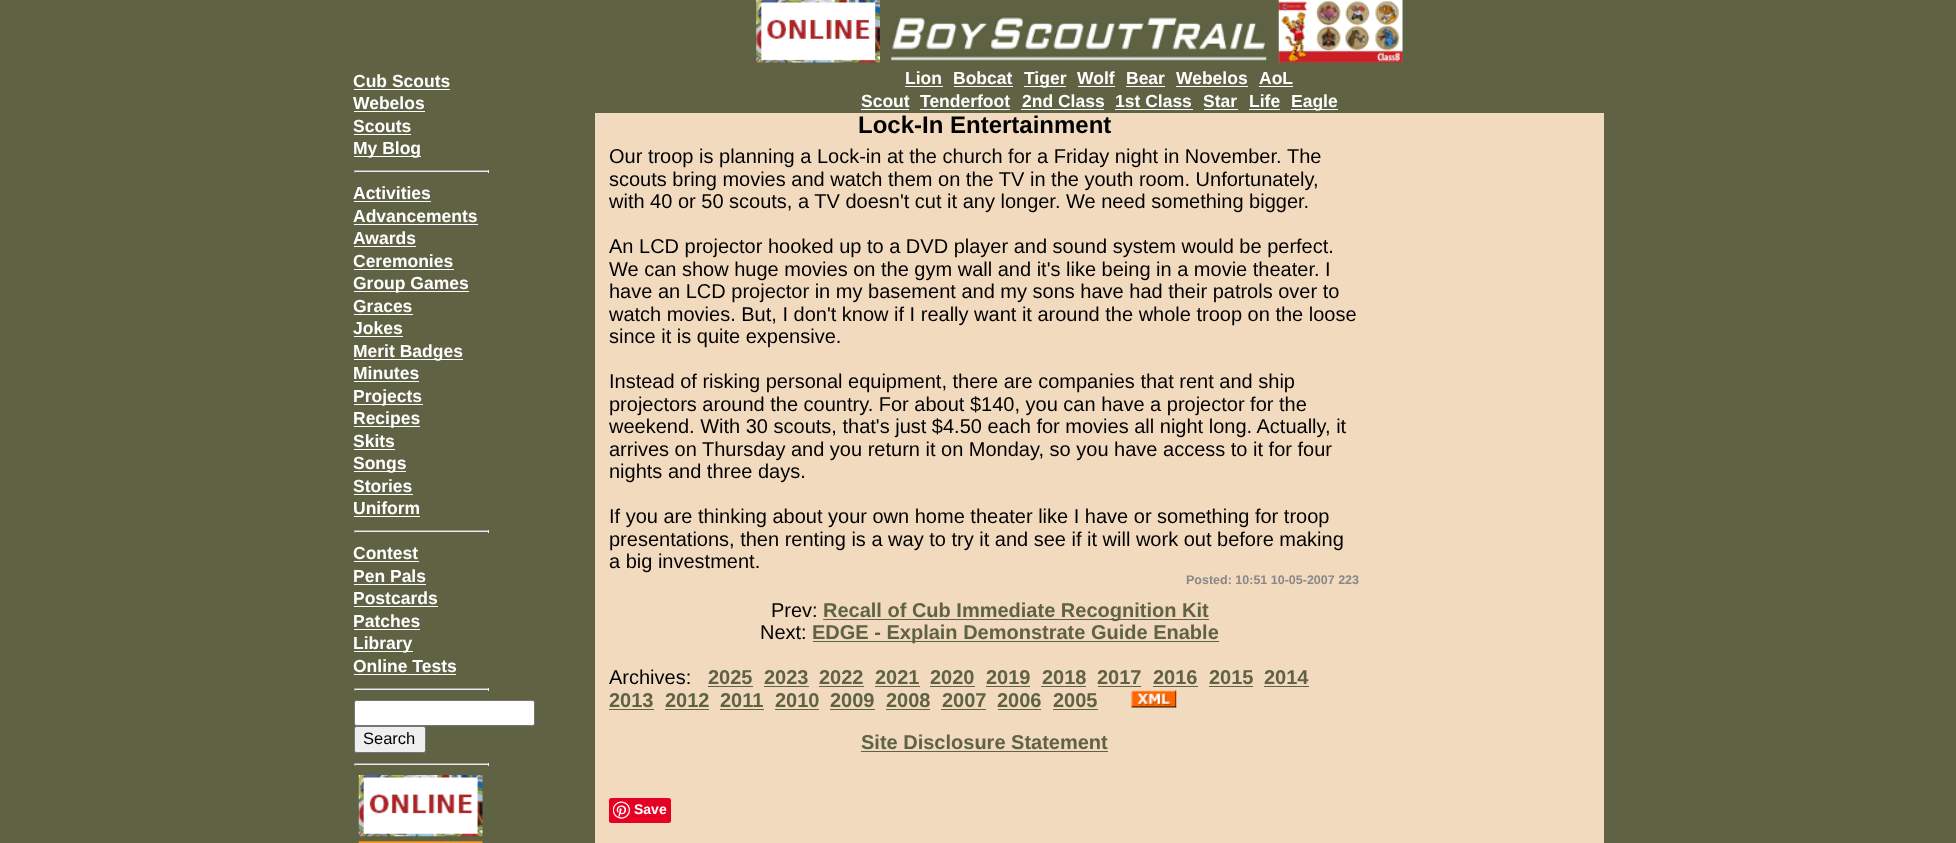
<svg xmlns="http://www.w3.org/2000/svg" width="1956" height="843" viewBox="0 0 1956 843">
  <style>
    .t1 { font: bold 17.5px Liberation Sans; fill: #fff; }
    .t2 { font: 16.5px Liberation Sans; fill: #000; }
    .t3 { font: bold 24px Liberation Sans; fill: #000; }
    .t4 { font: 20px Liberation Sans; fill: #000; }
    .t5 { font: bold 12.5px Liberation Sans; fill: #888; }
    .t6 { font: bold 20px Liberation Sans; fill: #5f6243; }
    .t7 { font: bold 14px Liberation Sans; fill: #fff; }
  </style>
  <rect width="100%" height="100%" fill="#5f6243"/>
  <text x="353" y="87" class="t1">Cub Scouts</text>
  <rect x="354" y="89" width="96" height="1" fill="#fff"/>
  <text x="353" y="109" class="t1">Webelos</text>
  <rect x="354" y="111" width="71" height="1" fill="#fff"/>
  <text x="353" y="132" class="t1">Scouts</text>
  <rect x="354" y="134" width="57" height="1" fill="#fff"/>
  <rect x="354" y="156" width="67" height="1" fill="#fff"/>
  <text x="353" y="154" class="t1">My Blog</text>
  <rect x="354" y="170" width="135" height="1" fill="#9f9f9f"/>
  <rect x="488" y="170" width="1" height="3" fill="#eee"/>
  <rect x="354" y="171" width="135" height="1" fill="#eee"/>
  <rect x="354" y="170" width="1" height="3" fill="#9f9f9f"/>
  <text x="353" y="199" class="t1">Activities</text>
  <rect x="354" y="201" width="77" height="1" fill="#fff"/>
  <text x="353" y="222" class="t1">Advancements</text>
  <rect x="354" y="224" width="124" height="1" fill="#fff"/>
  <text x="353" y="244" class="t1">Awards</text>
  <rect x="354" y="246" width="62" height="1" fill="#fff"/>
  <text x="353" y="267" class="t1">Ceremonies</text>
  <rect x="354" y="269" width="100" height="1" fill="#fff"/>
  <rect x="354" y="291" width="115" height="1" fill="#fff"/>
  <text x="353" y="289" class="t1">Group Games</text>
  <text x="353" y="312" class="t1">Graces</text>
  <rect x="354" y="314" width="59" height="1" fill="#fff"/>
  <text x="353" y="334" class="t1">Jokes</text>
  <rect x="354" y="336" width="49" height="1" fill="#fff"/>
  <rect x="354" y="359" width="109" height="1" fill="#fff"/>
  <text x="353" y="357" class="t1">Merit Badges</text>
  <text x="353" y="379" class="t1">Minutes</text>
  <rect x="354" y="381" width="65" height="1" fill="#fff"/>
  <rect x="354" y="404" width="69" height="1" fill="#fff"/>
  <text x="353" y="402" class="t1">Projects</text>
  <rect x="354" y="426" width="66" height="1" fill="#fff"/>
  <text x="353" y="424" class="t1">Recipes</text>
  <text x="353" y="447" class="t1">Skits</text>
  <rect x="354" y="449" width="41" height="1" fill="#fff"/>
  <rect x="354" y="471" width="52" height="1" fill="#fff"/>
  <text x="353" y="469" class="t1">Songs</text>
  <text x="353" y="492" class="t1">Stories</text>
  <rect x="354" y="494" width="59" height="1" fill="#fff"/>
  <text x="353" y="514" class="t1">Uniform</text>
  <rect x="354" y="516" width="66" height="1" fill="#fff"/>
  <rect x="354" y="530" width="135" height="1" fill="#9f9f9f"/>
  <rect x="488" y="530" width="1" height="3" fill="#eee"/>
  <rect x="354" y="531" width="135" height="1" fill="#eee"/>
  <rect x="354" y="530" width="1" height="3" fill="#9f9f9f"/>
  <text x="353" y="559" class="t1">Contest</text>
  <rect x="354" y="561" width="65" height="1" fill="#fff"/>
  <text x="353" y="582" class="t1">Pen Pals</text>
  <rect x="354" y="584" width="72" height="1" fill="#fff"/>
  <text x="353" y="604" class="t1">Postcards</text>
  <rect x="354" y="606" width="84" height="1" fill="#fff"/>
  <text x="353" y="627" class="t1">Patches</text>
  <rect x="354" y="629" width="66" height="1" fill="#fff"/>
  <rect x="354" y="651" width="59" height="1" fill="#fff"/>
  <text x="353" y="649" class="t1">Library</text>
  <text x="353" y="672" class="t1">Online Tests</text>
  <rect x="354" y="674" width="102" height="1" fill="#fff"/>
  <rect x="354" y="688" width="135" height="1" fill="#9f9f9f"/>
  <rect x="488" y="688" width="1" height="3" fill="#eee"/>
  <rect x="354" y="689" width="135" height="1" fill="#eee"/>
  <rect x="354" y="688" width="1" height="3" fill="#9f9f9f"/>
  <rect x="354.5" y="700.5" width="180" height="25" rx="2" fill="#fff" stroke="#767676"/>
  <rect x="354.5" y="726.5" width="71" height="26" rx="2" fill="#efefef" stroke="#767676"/>
  <text x="363" y="744" class="t2">Search</text>
  <rect x="354" y="763" width="135" height="1" fill="#9f9f9f"/>
  <rect x="488" y="763" width="1" height="3" fill="#eee"/>
  <rect x="354" y="764" width="135" height="1" fill="#eee"/>
  <rect x="354" y="763" width="1" height="3" fill="#9f9f9f"/>
  <image x="358" y="775" width="125" height="62" href="images/1.png"/>
  <image x="358" y="841" width="125" height="2" href="images/2.png"/>
  <rect x="595" y="113" width="1009" height="730" fill="#f2dabf"/>
  <image x="756" y="0" width="124" height="63" href="images/3.png"/>
  <image x="891" y="16" width="376" height="45" href="images/4.png"/>
  <image x="1278" y="0" width="125" height="63" href="images/5.png"/>
  <text x="905" y="84" class="t1">Lion</text>
  <rect x="905" y="86" width="38" height="1" fill="#fff"/>
  <text x="953" y="84" class="t1">Bobcat</text>
  <rect x="954" y="86" width="59" height="1" fill="#fff"/>
  <rect x="1024" y="86" width="42" height="1" fill="#fff"/>
  <text x="1024" y="84" class="t1">Tiger</text>
  <text x="1077" y="84" class="t1">Wolf</text>
  <rect x="1078" y="86" width="37" height="1" fill="#fff"/>
  <text x="1126" y="84" class="t1">Bear</text>
  <rect x="1126" y="86" width="39" height="1" fill="#fff"/>
  <text x="1176" y="84" class="t1">Webelos</text>
  <rect x="1176" y="86" width="72" height="1" fill="#fff"/>
  <text x="1259" y="84" class="t1">AoL</text>
  <rect x="1259" y="86" width="34" height="1" fill="#fff"/>
  <text x="861" y="107" class="t1">Scout</text>
  <rect x="861" y="109" width="48" height="1" fill="#fff"/>
  <text x="920" y="107" class="t1">Tenderfoot</text>
  <rect x="920" y="109" width="90" height="1" fill="#fff"/>
  <text x="1022" y="107" class="t1">2nd Class</text>
  <rect x="1021" y="109" width="83" height="1" fill="#fff"/>
  <text x="1115" y="107" class="t1">1st Class</text>
  <rect x="1115" y="109" width="78" height="1" fill="#fff"/>
  <text x="1203" y="107" class="t1">Star</text>
  <rect x="1204" y="109" width="34" height="1" fill="#fff"/>
  <text x="1249" y="107" class="t1">Life</text>
  <rect x="1249" y="109" width="31" height="1" fill="#fff"/>
  <rect x="1291" y="109" width="47" height="1" fill="#fff"/>
  <text x="1291" y="107" class="t1">Eagle</text>
  <text x="858" y="133" class="t3">Lock-In Entertainment</text>
  <text x="609" y="163" class="t4">Our troop is planning a Lock-in at the church for a Friday night in November.</text>
  <text x="1287" y="163" class="t4">The</text>
  <text x="609" y="186" class="t4">scouts bring movies and watch them on the TV in the youth room. Unfortunately,</text>
  <text x="609" y="208" class="t4">with 40 or 50 scouts, a TV doesn't cut it any longer. We need something bigger.</text>
  <text x="609" y="253" class="t4">An LCD projector hooked up to a DVD player and sound system would be perfect.</text>
  <text x="609" y="276" class="t4">We can show huge movies on the gym wall and it's like being in a movie theater. I</text>
  <text x="609" y="298" class="t4">have an LCD projector in my basement and my sons have had their patrols over to</text>
  <text x="609" y="321" class="t4">watch movies. But, I don't know if I really want it around the whole troop on the loose</text>
  <text x="609" y="343" class="t4">since it is quite expensive.</text>
  <text x="609" y="388" class="t4">Instead of risking personal equipment, there are companies that rent and ship</text>
  <text x="609" y="411" class="t4">projectors around the country. For about $140, you can have a projector for the</text>
  <text x="609" y="433" class="t4">weekend. With 30 scouts, that's just $4.50 each for movies all night long. Actually, it</text>
  <text x="609" y="456" class="t4">arrives on Thursday and you return it on Monday, so you have access to it for four</text>
  <text x="609" y="478" class="t4">nights and three days.</text>
  <text x="609" y="523" class="t4">If you are thinking about your own home theater like I have or something for troop</text>
  <text x="609" y="546" class="t4">presentations, then renting is a way to try it and see if it will work out before making</text>
  <text x="609" y="568" class="t4">a big investment.</text>
  <text x="1186" y="584" class="t5">Posted: 10:51 10-05-2007 223</text>
  <text x="771" y="617" class="t4">Prev:</text>
  <rect x="823" y="619" width="386" height="1" fill="#5f6243"/>
  <text x="823" y="617" class="t6">Recall of Cub Immediate Recognition Kit</text>
  <text x="760" y="639" class="t4">Next:</text>
  <rect x="813" y="641" width="406" height="1" fill="#5f6243"/>
  <text x="812" y="639" class="t6">EDGE - Explain Demonstrate Guide Enable</text>
  <text x="609" y="684" class="t4">Archives:</text>
  <text x="708" y="684" class="t6">2025</text>
  <rect x="708" y="686" width="45" height="1" fill="#5f6243"/>
  <text x="764" y="684" class="t6">2023</text>
  <rect x="764" y="686" width="45" height="1" fill="#5f6243"/>
  <text x="819" y="684" class="t6">2022</text>
  <rect x="819" y="686" width="45" height="1" fill="#5f6243"/>
  <text x="875" y="684" class="t6">2021</text>
  <rect x="875" y="686" width="45" height="1" fill="#5f6243"/>
  <text x="930" y="684" class="t6">2020</text>
  <rect x="930" y="686" width="45" height="1" fill="#5f6243"/>
  <text x="986" y="684" class="t6">2019</text>
  <rect x="986" y="686" width="44" height="1" fill="#5f6243"/>
  <text x="1042" y="684" class="t6">2018</text>
  <rect x="1041" y="686" width="45" height="1" fill="#5f6243"/>
  <text x="1097" y="684" class="t6">2017</text>
  <rect x="1098" y="686" width="43" height="1" fill="#5f6243"/>
  <text x="1153" y="684" class="t6">2016</text>
  <rect x="1153" y="686" width="45" height="1" fill="#5f6243"/>
  <text x="1209" y="684" class="t6">2015</text>
  <rect x="1209" y="686" width="44" height="1" fill="#5f6243"/>
  <text x="1264" y="684" class="t6">2014</text>
  <rect x="1264" y="686" width="45" height="1" fill="#5f6243"/>
  <text x="609" y="707" class="t6">2013</text>
  <rect x="609" y="709" width="45" height="1" fill="#5f6243"/>
  <text x="665" y="707" class="t6">2012</text>
  <rect x="665" y="709" width="44" height="1" fill="#5f6243"/>
  <text x="720" y="707" class="t6">2011</text>
  <rect x="720" y="709" width="44" height="1" fill="#5f6243"/>
  <text x="775" y="707" class="t6">2010</text>
  <rect x="775" y="709" width="44" height="1" fill="#5f6243"/>
  <text x="830" y="707" class="t6">2009</text>
  <rect x="830" y="709" width="45" height="1" fill="#5f6243"/>
  <text x="886" y="707" class="t6">2008</text>
  <rect x="886" y="709" width="44" height="1" fill="#5f6243"/>
  <text x="942" y="707" class="t6">2007</text>
  <rect x="941" y="709" width="45" height="1" fill="#5f6243"/>
  <text x="997" y="707" class="t6">2006</text>
  <rect x="998" y="709" width="43" height="1" fill="#5f6243"/>
  <text x="1053" y="707" class="t6">2005</text>
  <rect x="1053" y="709" width="45" height="1" fill="#5f6243"/>
  <image x="1131" y="690" width="46" height="18" href="images/6.png"/>
  <text x="861" y="749" class="t6">Site Disclosure Statement</text>
  <rect x="861" y="751" width="247" height="1" fill="#5f6243"/>
  <rect x="609" y="798" width="62" height="25" rx="2.5" fill="#e60023"/>
  <image x="613" y="801" width="17" height="18" href="images/7.png"/>
  <text x="634" y="814" class="t7">Save</text>
</svg>
